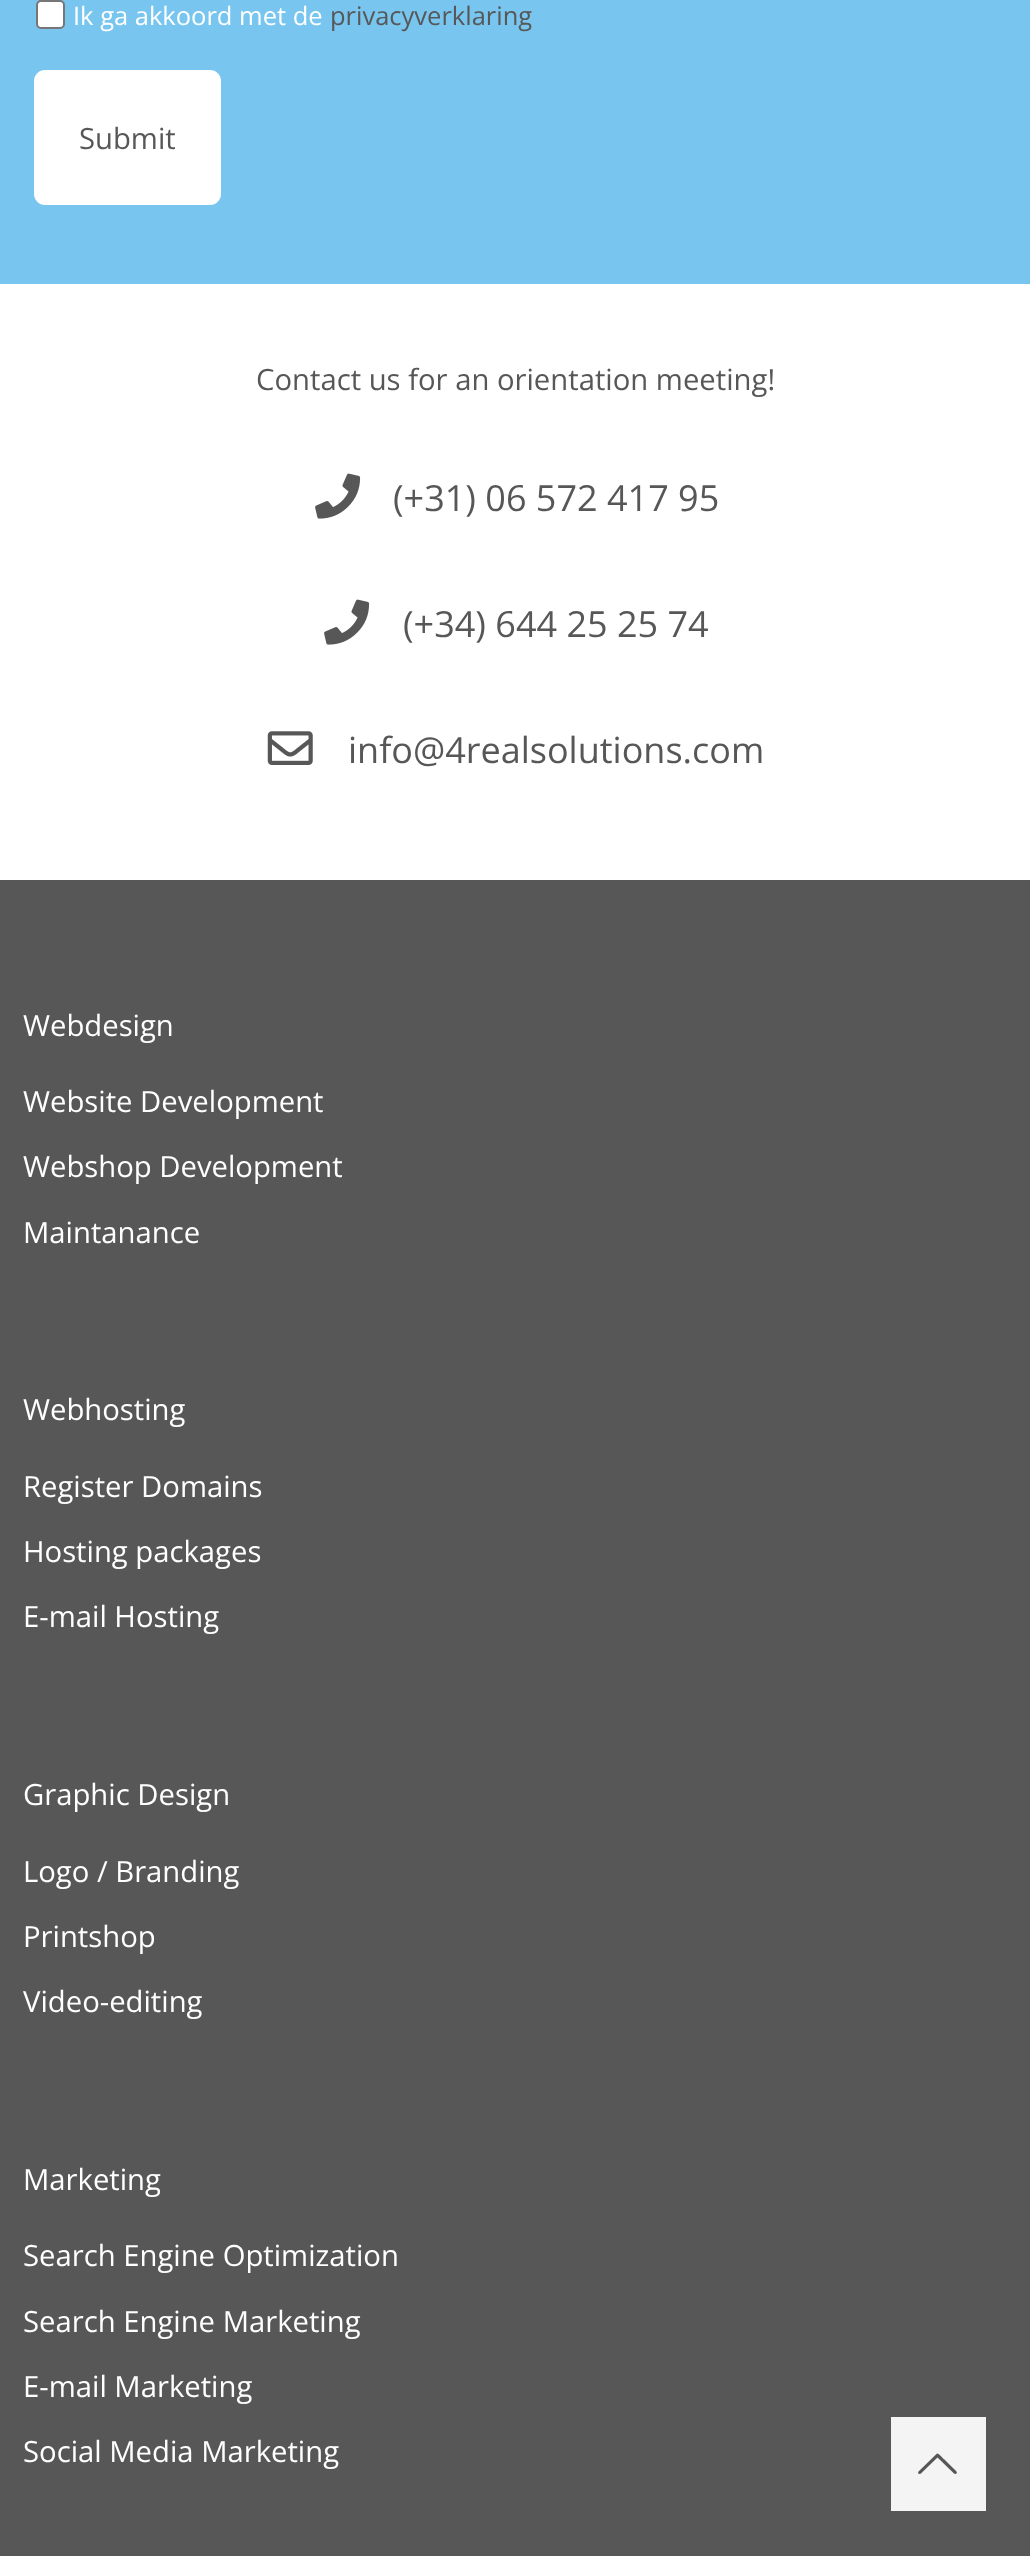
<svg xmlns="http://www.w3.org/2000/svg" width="1030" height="2556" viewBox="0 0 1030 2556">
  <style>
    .t1 { font: 25.5px Open Sans; fill: #fff; }
    .t2 { font: 25.5px Open Sans; fill: #575757; }
    .t3 { font: 29.25px Open Sans; fill: #575757; }
    .t4 { font: 36px Open Sans; fill: #575757; }
    .t5 { font: 29.25px Open Sans; fill: #fff; }
  </style>
  <rect width="100%" height="100%" fill="#fff"/>
  <rect x="0" y="0" width="1030" height="284" fill="#78c6ef"/>
  <rect x="37" y="1" width="27" height="27" rx="4" fill="#fff" stroke="#767676" stroke-width="2"/>
  <text x="73" y="25" class="t1">Ik ga akkoord met de</text>
  <text x="330" y="25" class="t2">privacyverklaring</text>
  <rect x="34" y="70" width="187" height="135" rx="11" fill="#fff"/>
  <text x="79" y="149" class="t3">Submit</text>
  <text x="256" y="390" class="t3">Contact us for an orientation meeting!</text>
  <image x="315" y="473" width="46" height="46" href="images/1.png"/>
  <text x="393" y="511" class="t4">(+31) 06 572 417 95</text>
  <image x="324" y="599" width="46" height="46" href="images/1.png"/>
  <text x="403" y="637" class="t4">(+34) 644 25 25 74</text>
  <image x="267" y="731" width="46" height="34" href="images/2.png"/>
  <text x="348" y="763" class="t4">info@4realsolutions.com</text>
  <rect x="0" y="880" width="1030" height="1676" fill="#575757"/>
  <text x="23" y="1036" class="t5">Webdesign</text>
  <text x="23" y="1112" class="t5">Website Development</text>
  <text x="23" y="1177" class="t5">Webshop Development</text>
  <text x="23" y="1243" class="t5">Maintanance</text>
  <text x="23" y="1420" class="t5">Webhosting</text>
  <text x="23" y="1497" class="t5">Register Domains</text>
  <text x="23" y="1562" class="t5">Hosting packages</text>
  <text x="23" y="1627" class="t5">E-mail Hosting</text>
  <text x="23" y="1805" class="t5">Graphic Design</text>
  <text x="23" y="1882" class="t5">Logo / Branding</text>
  <text x="23" y="1947" class="t5">Printshop</text>
  <text x="23" y="2012" class="t5">Video-editing</text>
  <text x="23" y="2190" class="t5">Marketing</text>
  <text x="23" y="2266" class="t5">Search Engine Optimization</text>
  <text x="23" y="2332" class="t5">Search Engine Marketing</text>
  <text x="23" y="2397" class="t5">E-mail Marketing</text>
  <text x="23" y="2462" class="t5">Social Media Marketing</text>
  <rect x="891" y="2417" width="95" height="94" fill="#f4f4f4"/>
  <path d="M954 2473.5L937.5 2457.5L923.5 2471C922.5 2472 919.5 2476 918 2473L918.5 2471.5L937 2453.5C938.5 2453 943.5 2459 944.5 2459.5L953.5 2468.5C953.5 2468.5 959.5 2473 955.5 2474Z" fill="#575757"/>
</svg>
